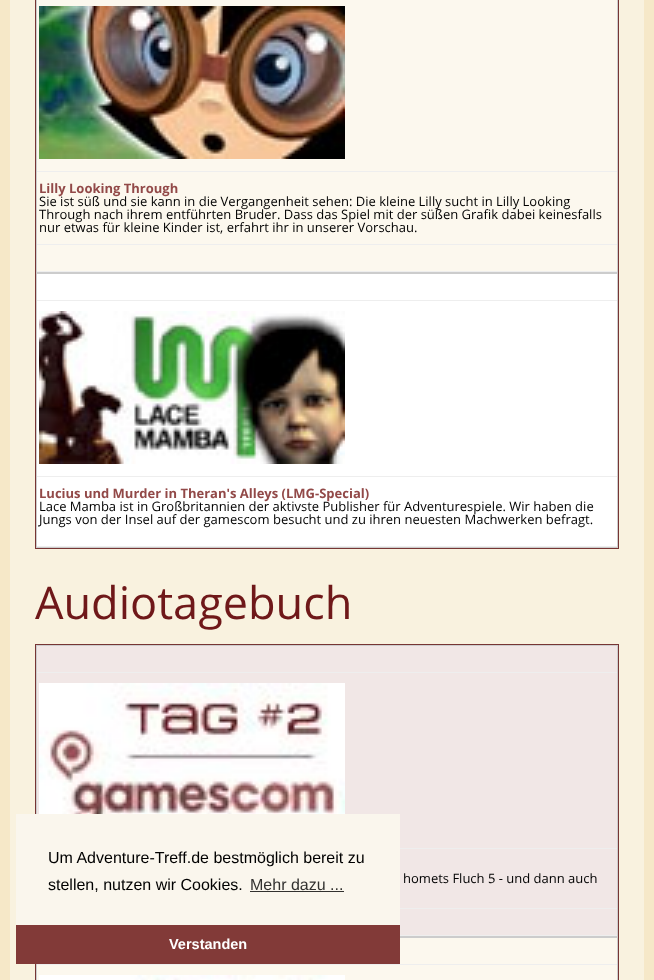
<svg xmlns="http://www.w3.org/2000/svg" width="654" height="980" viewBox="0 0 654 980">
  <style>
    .t1 { font: bold 13px Open Sans; fill: #924948; }
    .t2 { font: 13px Open Sans; fill: #000; }
    .t3 { font: 45px Open Sans; fill: #6f1819; }
    .t4 { font: 16px Liberation Sans; fill: #000; }
    .t5 { font: 16px Liberation Sans; fill: #32312f; }
    .t6 { font: bold 14.5px Liberation Sans; fill: #fff; }
  </style>
  <rect width="100%" height="100%" fill="#f6e8c8"/>
  <rect x="10" y="0" width="634" height="980" fill="#f9f2df"/>
  <rect x="35.5" y="-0.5" width="583" height="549" fill="none" stroke="#773534"/>
  <rect x="37" y="0" width="580" height="271" fill="#fcf8ee"/>
  <rect x="36.5" y="-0.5" width="581" height="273" fill="none" stroke="#ccc"/>
  <rect x="37" y="171" width="580" height="1" fill="#eee"/>
  <image x="39" y="6" width="306" height="153" href="images/1.png"/>
  <rect x="37" y="244" width="580" height="1" fill="#eee"/>
  <text x="39" y="193" class="t1">Lilly Looking Through</text>
  <text x="39" y="206" class="t2">Sie ist süß und sie kann in die Vergangenheit sehen: Die kleine Lilly sucht in Lilly Looking</text>
  <text x="39" y="219" class="t2">Through nach ihrem entführten Bruder. Dass das Spiel mit der süßen Grafik dabei keinesfalls</text>
  <text x="39" y="232" class="t2">nur etwas für kleine Kinder ist, erfahrt ihr in unserer Vorschau.</text>
  <rect x="37" y="271" width="580" height="1" fill="#eee"/>
  <rect x="37" y="274" width="580" height="272" fill="#fff"/>
  <rect x="36.5" y="273.5" width="581" height="274" fill="none" stroke="#ccc"/>
  <rect x="37" y="300" width="580" height="1" fill="#eee"/>
  <rect x="37" y="476" width="580" height="1" fill="#eee"/>
  <image x="39" y="311" width="306" height="153" href="images/2.png"/>
  <rect x="37" y="546" width="580" height="1" fill="#eee"/>
  <text x="39" y="498" class="t1">Lucius und Murder in Theran's Alleys (LMG-Special)</text>
  <text x="39" y="511" class="t2">Lace Mamba ist in Großbritannien der aktivste Publisher für Adventurespiele. Wir haben die</text>
  <text x="39" y="524" class="t2">Jungs von der Insel auf der gamescom besucht und zu ihren neuesten Machwerken befragt.</text>
  <text x="35" y="619" class="t3">Audiotagebuch</text>
  <rect x="35.5" y="644.5" width="583" height="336" fill="none" stroke="#773534"/>
  <rect x="37" y="646" width="580" height="289" fill="#f1e7e6"/>
  <rect x="36.5" y="645.5" width="581" height="291" fill="none" stroke="#ccc"/>
  <rect x="37" y="672" width="580" height="1" fill="#eee"/>
  <rect x="400" y="848" width="217" height="1" fill="#eee"/>
  <image x="39" y="683" width="306" height="131" href="images/3.png"/>
  <rect x="400" y="908" width="217" height="1" fill="#eee"/>
  <text x="403" y="883" class="t2">homets Fluch 5 - und dann auch</text>
  <rect x="400" y="935" width="217" height="1" fill="#eee"/>
  <rect x="36.5" y="937.5" width="581" height="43" fill="#fcf8ee" stroke="#ccc"/>
  <rect x="37" y="964" width="580" height="1" fill="#eee"/>
  <image x="39" y="975" width="306" height="5" href="images/4.png"/>
  <rect x="16" y="814" width="384" height="111" fill="#faf6ed"/>
  <text x="48" y="863" class="t4">Um Adventure-Treff.de bestmöglich bereit zu</text>
  <text x="48" y="890" class="t4">stellen, nutzen wir Cookies.</text>
  <text x="250" y="890" class="t5">Mehr dazu ...</text>
  <rect x="250" y="891" width="94" height="1" fill="#32312f"/>
  <rect x="16" y="925" width="384" height="39" fill="#823a38"/>
  <text x="169" y="949" class="t6">Verstanden</text>
</svg>
